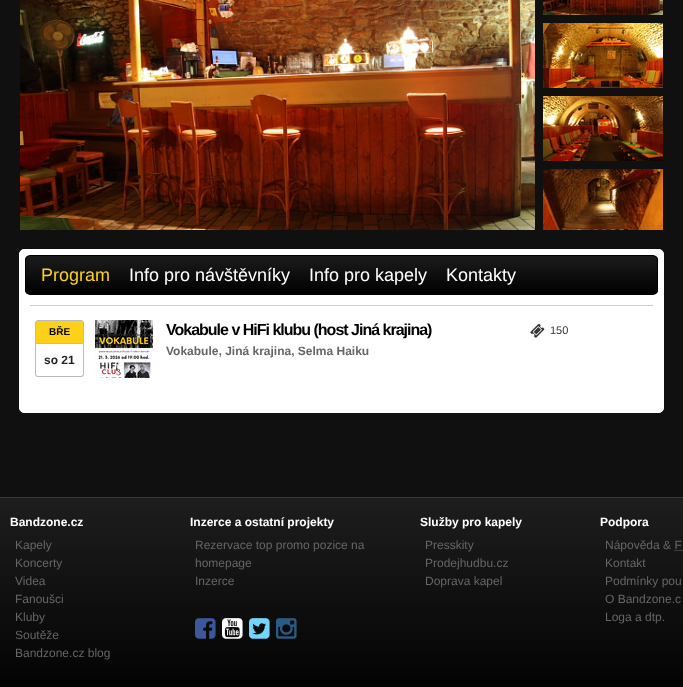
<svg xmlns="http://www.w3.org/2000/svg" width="683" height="687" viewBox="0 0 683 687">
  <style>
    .t1 { font: 18px Liberation Sans; fill: #fdd119; }
    .t2 { font: 18px Liberation Sans; fill: #fff; }
    .t3 { font: bold 10px Liberation Sans; fill: #000; }
    .t4 { font: bold 12px Liberation Sans; fill: #222; }
    .t5 { font: bold 16px Liberation Sans; letter-spacing: -1px; fill: #000; }
    .t6 { font: bold 12px Liberation Sans; fill: #666; }
    .t7 { font: 11px Liberation Sans; fill: #333; }
    .t8 { font: bold 12px Liberation Sans; fill: #fff; }
    .t9 { font: 12px Liberation Sans; fill: #666; }
  </style>
  <defs>
    <clipPath id="clip1"><rect x="25" y="255" width="633" height="40" rx="5"/></clipPath>
    <linearGradient id="g1" gradientUnits="userSpaceOnUse" x1="26" y1="256" x2="26" y2="294"><stop offset="0" stop-color="#1c1c1c"/><stop offset="1" stop-color="#000"/></linearGradient>
  </defs>
  <rect width="100%" height="100%" fill="#101010"/>
  <image x="20" y="0" width="515" height="230" href="images/1.png"/>
  <image x="543" y="0" width="120" height="15" href="images/2.png"/>
  <image x="543" y="23" width="120" height="65" href="images/3.png"/>
  <image x="543" y="96" width="120" height="65" href="images/4.png"/>
  <image x="543" y="169" width="120" height="61" href="images/5.png"/>
  <rect x="19.5" y="249.5" width="644" height="163" rx="4.5" fill="#fff" stroke="#fff"/>
  <g clip-path="url(#clip1)">
    <rect x="25" y="256" width="633" height="38" fill="url(#g1)"/>
  </g>
  <rect x="25.5" y="255.5" width="632" height="39" rx="4.5" fill="none" stroke="#000"/>
  <text x="41" y="281" class="t1">Program</text>
  <text x="129" y="281" class="t2">Info pro návštěvníky</text>
  <text x="309" y="281" class="t2">Info pro kapely</text>
  <text x="446" y="281" class="t2">Kontakty</text>
  <rect x="30" y="305" width="623" height="1" fill="#cfcfcf"/>
  <path d="M38 320.5H81C82.5 320.5 83.5 321.5 83.5 323V343.5H35.5V323C35.5 321.5 36.5 320.5 38 320.5Z" fill="#fdd119" stroke="#bbb"/>
  <text x="49" y="335" class="t3">BŘE</text>
  <path d="M35 344H84V374C84 376 83 377 81 377H38C36 377 35 376 35 374ZM36 344H83V375L81 376H38C37 376 36 375 36 374Z" fill="#bbb" fill-rule="evenodd"/>
  <text x="44" y="364" class="t4">so 21</text>
  <image x="95" y="320" width="58" height="58" href="images/6.png"/>
  <text x="166" y="335" class="t5">Vokabule v HiFi klubu (host Jiná krajina)</text>
  <text x="166" y="355" class="t6">Vokabule, Jiná krajina, Selma Haiku</text>
  <image x="530" y="323" width="15" height="15" href="images/7.png"/>
  <text x="550" y="334" class="t7">150</text>
  <rect x="0" y="680" width="683" height="7" fill="#000"/>
  <image x="0" y="498" width="683" height="182" href="images/8.png"/>
  <rect x="0" y="497" width="683" height="1" fill="#393939"/>
  <text x="10" y="526" class="t8">Bandzone.cz</text>
  <text x="15" y="549" class="t9">Kapely</text>
  <text x="15" y="567" class="t9">Koncerty</text>
  <text x="15" y="585" class="t9">Videa</text>
  <text x="15" y="603" class="t9">Fanoušci</text>
  <text x="15" y="621" class="t9">Kluby</text>
  <text x="15" y="639" class="t9">Soutěže</text>
  <text x="15" y="657" class="t9">Bandzone.cz blog</text>
  <text x="190" y="526" class="t8">Inzerce a ostatní projekty</text>
  <text x="195" y="549" class="t9">Rezervace top promo pozice na</text>
  <text x="195" y="567" class="t9">homepage</text>
  <text x="195" y="585" class="t9">Inzerce</text>
  <image x="195" y="618" width="21" height="21" href="images/9.png"/>
  <image x="222" y="618" width="21" height="21" href="images/10.png"/>
  <image x="249" y="618" width="21" height="21" href="images/11.png"/>
  <image x="276" y="618" width="21" height="21" href="images/12.png"/>
  <text x="420" y="526" class="t8">Služby pro kapely</text>
  <text x="425" y="549" class="t9">Presskity</text>
  <text x="425" y="567" class="t9">Prodejhudbu.cz</text>
  <text x="425" y="585" class="t9">Doprava kapel</text>
  <text x="600" y="526" class="t8">Podpora</text>
  <text x="605" y="549" class="t9">Nápověda &amp; F</text>
  <path d="M674.5 550.5H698.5" fill="none" stroke="#666" stroke-dasharray="1 1"/>
  <text x="605" y="567" class="t9">Kontakt</text>
  <text x="605" y="585" class="t9">Podmínky pou</text>
  <text x="605" y="603" class="t9">O Bandzone.c</text>
  <text x="605" y="621" class="t9">Loga a dtp.</text>
</svg>
